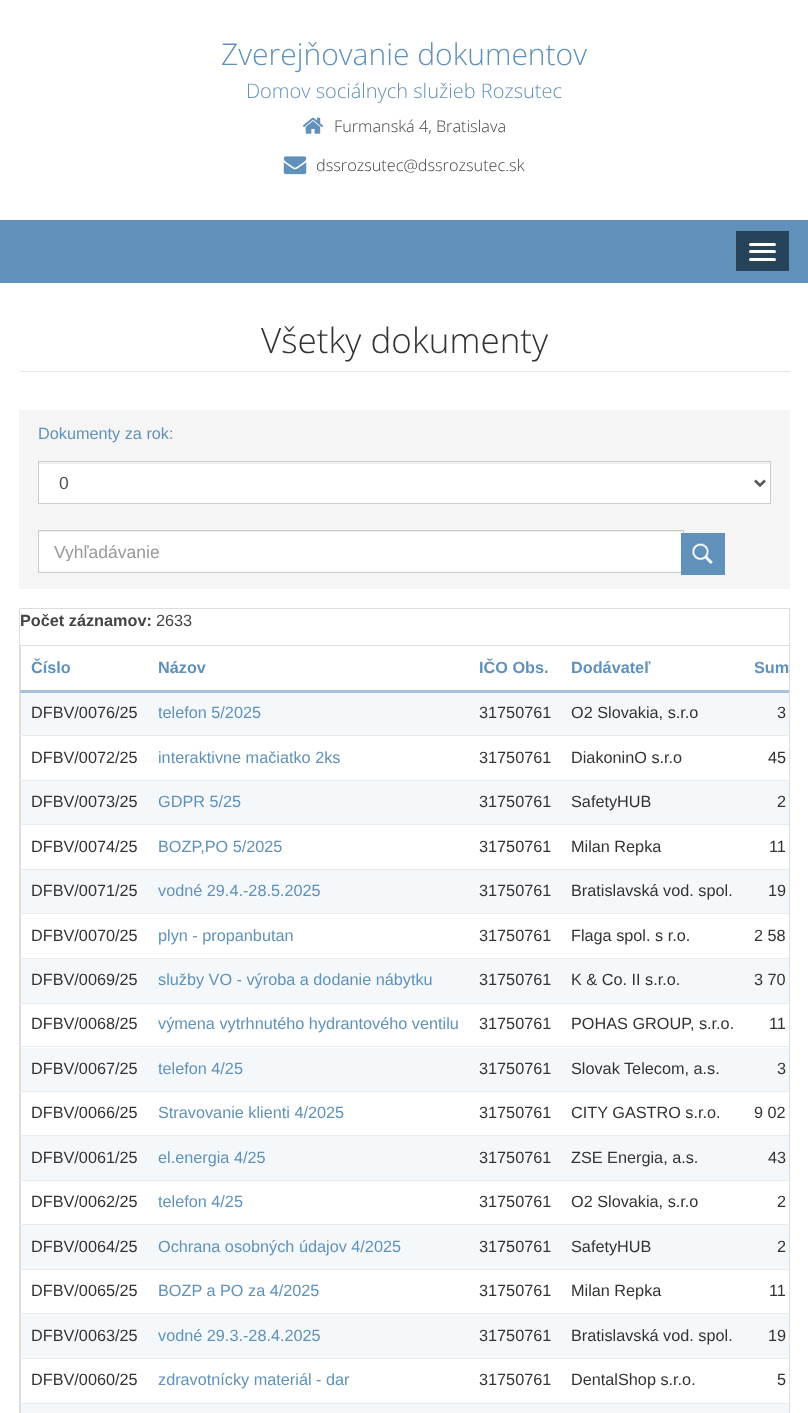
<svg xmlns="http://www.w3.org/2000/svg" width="808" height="1413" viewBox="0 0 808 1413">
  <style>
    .t1 { font: 300 30px Open Sans; fill: #6091ba; }
    .t2 { font: 300 20px Open Sans; fill: #6091ba; }
    .t3 { font: 300 16.25px Open Sans; fill: #444; }
    .t4 { font: 300 35px Open Sans; fill: #333; }
    .t5 { font: 16.25px Liberation Sans; fill: #6091ba; }
    .t6 { font: 17.5px Liberation Sans; fill: #555; }
    .t7 { font: 17.5px Liberation Sans; fill: #999; }
    .t8 { font: bold 16.25px Liberation Sans; fill: #444; }
    .t9 { font: 16.25px Liberation Sans; fill: #444; }
    .t10 { font: bold 16.25px Liberation Sans; fill: #6091ba; }
    .t11 { font: 16.25px Liberation Sans; fill: #333; }
  </style>
  <defs>
    <clipPath id="clip1"><rect x="54" y="541" width="614" height="20"/></clipPath>
  </defs>
  <rect width="100%" height="100%" fill="#fff"/>
  <text x="221" y="65" class="t1">Zverejňovanie dokumentov</text>
  <text x="246" y="98" class="t2">Domov sociálnych služieb Rozsutec</text>
  <image x="302" y="117" width="21" height="17" href="images/1.png"/>
  <text x="334" y="132" class="t3">Furmanská 4, Bratislava</text>
  <image x="283" y="156" width="24" height="19" href="images/2.png"/>
  <text x="316" y="171" class="t3">dssrozsutec@dssrozsutec.sk</text>
  <rect x="0" y="220" width="808" height="63" fill="#6091ba"/>
  <rect x="736" y="231" width="53" height="40" fill="#27435a"/>
  <rect x="749" y="243" width="27" height="3" rx="1.5" fill="#fff"/>
  <rect x="749" y="250" width="27" height="3" rx="1.5" fill="#fff"/>
  <rect x="749" y="258" width="27" height="3" rx="1.5" fill="#fff"/>
  <rect x="19" y="371" width="771" height="1" fill="#e8e8e8"/>
  <text x="261" y="353" class="t4">Všetky dokumenty</text>
  <rect x="19" y="410" width="771" height="179" fill="#f5f5f5"/>
  <text x="38" y="439" class="t5">Dokumenty za rok:</text>
  <rect x="39" y="464" width="731" height="39" fill="#fff"/>
  <rect x="39" y="463" width="731" height="1" fill="#ececec"/>
  <rect x="38.5" y="461.5" width="732" height="42" fill="none" stroke="#ccc"/>
  <path d="M755 480.5L760 485.5L765 480.5" fill="none" stroke="#555" stroke-width="2.5"/>
  <text x="59" y="489" class="t6">0</text>
  <rect x="39" y="532" width="644" height="39" fill="#fff"/>
  <rect x="39" y="531" width="644" height="1" fill="#ececec"/>
  <rect x="38.5" y="530.5" width="645" height="42" fill="none" stroke="#ccc"/>
  <g clip-path="url(#clip1)">
    <text x="54" y="558" class="t7">Vyhľadávanie</text>
  </g>
  <rect x="681" y="533" width="44" height="42" fill="#6091ba"/>
  <image x="692" y="543" width="21" height="21" href="images/3.png"/>
  <rect x="19.5" y="608.5" width="770" height="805" fill="none" stroke="#ddd"/>
  <text x="20" y="626" class="t8">Počet záznamov:</text>
  <text x="156" y="626" class="t9">2633</text>
  <rect x="20" y="645" width="769" height="1" fill="#ddd"/>
  <rect x="20" y="645" width="1" height="768" fill="#ddd"/>
  <text x="31" y="673" class="t10">Číslo</text>
  <text x="158" y="673" class="t10">Názov</text>
  <text x="479" y="673" class="t10">IČO Obs.</text>
  <text x="571" y="673" class="t10">Dodávateľ</text>
  <rect x="20" y="690" width="769" height="3" fill="#a7c2d9"/>
  <text x="754" y="673" class="t10">Sum</text>
  <rect x="21" y="693" width="768" height="42" fill="#f5f8fb"/>
  <text x="31" y="718" class="t11">DFBV/0076/25</text>
  <text x="158" y="718" class="t5">telefon 5/2025</text>
  <text x="479" y="718" class="t11">31750761</text>
  <text x="571" y="718" class="t11">O2 Slovakia, s.r.o</text>
  <text x="777" y="718" class="t11">3</text>
  <text x="31" y="763" class="t11">DFBV/0072/25</text>
  <text x="158" y="763" class="t5">interaktivne mačiatko 2ks</text>
  <text x="479" y="763" class="t11">31750761</text>
  <text x="571" y="763" class="t11">DiakoninO s.r.o</text>
  <rect x="20" y="735" width="769" height="1" fill="#ebebeb"/>
  <text x="768" y="763" class="t11">45</text>
  <rect x="21" y="781" width="768" height="43" fill="#f5f8fb"/>
  <text x="31" y="807" class="t11">DFBV/0073/25</text>
  <text x="158" y="807" class="t5">GDPR 5/25</text>
  <text x="479" y="807" class="t11">31750761</text>
  <text x="571" y="807" class="t11">SafetyHUB</text>
  <rect x="20" y="780" width="769" height="1" fill="#ebebeb"/>
  <text x="777" y="807" class="t11">2</text>
  <text x="31" y="852" class="t11">DFBV/0074/25</text>
  <text x="158" y="852" class="t5">BOZP,PO 5/2025</text>
  <text x="479" y="852" class="t11">31750761</text>
  <text x="571" y="852" class="t11">Milan Repka</text>
  <rect x="20" y="824" width="769" height="1" fill="#ebebeb"/>
  <text x="769" y="852" class="t11">11</text>
  <rect x="21" y="870" width="768" height="43" fill="#f5f8fb"/>
  <text x="31" y="896" class="t11">DFBV/0071/25</text>
  <text x="158" y="896" class="t5">vodné 29.4.-28.5.2025</text>
  <text x="479" y="896" class="t11">31750761</text>
  <text x="571" y="896" class="t11">Bratislavská vod. spol.</text>
  <rect x="20" y="869" width="769" height="1" fill="#ebebeb"/>
  <text x="768" y="896" class="t11">19</text>
  <text x="31" y="941" class="t11">DFBV/0070/25</text>
  <text x="158" y="941" class="t5">plyn - propanbutan</text>
  <text x="479" y="941" class="t11">31750761</text>
  <text x="571" y="941" class="t11">Flaga spol. s r.o.</text>
  <rect x="20" y="913" width="769" height="1" fill="#ebebeb"/>
  <text x="754" y="941" class="t11">2 58</text>
  <rect x="21" y="959" width="768" height="44" fill="#f5f8fb"/>
  <text x="31" y="985" class="t11">DFBV/0069/25</text>
  <text x="158" y="985" class="t5">služby VO - výroba a dodanie nábytku</text>
  <text x="479" y="985" class="t11">31750761</text>
  <text x="571" y="985" class="t11">K &amp; Co. II s.r.o.</text>
  <rect x="20" y="958" width="769" height="1" fill="#ebebeb"/>
  <text x="754" y="985" class="t11">3 70</text>
  <text x="31" y="1029" class="t11">DFBV/0068/25</text>
  <text x="158" y="1029" class="t5">výmena vytrhnutého hydrantového ventilu</text>
  <text x="479" y="1029" class="t11">31750761</text>
  <text x="571" y="1029" class="t11">POHAS GROUP, s.r.o.</text>
  <rect x="20" y="1003" width="769" height="1" fill="#ebebeb"/>
  <text x="769" y="1029" class="t11">11</text>
  <rect x="21" y="1048" width="768" height="43" fill="#f5f8fb"/>
  <text x="31" y="1074" class="t11">DFBV/0067/25</text>
  <text x="158" y="1074" class="t5">telefon 4/25</text>
  <text x="479" y="1074" class="t11">31750761</text>
  <text x="571" y="1074" class="t11">Slovak Telecom, a.s.</text>
  <rect x="20" y="1046" width="769" height="1" fill="#ebebeb"/>
  <text x="777" y="1074" class="t11">3</text>
  <text x="31" y="1118" class="t11">DFBV/0066/25</text>
  <text x="158" y="1118" class="t5">Stravovanie klienti 4/2025</text>
  <text x="479" y="1118" class="t11">31750761</text>
  <text x="571" y="1118" class="t11">CITY GASTRO s.r.o.</text>
  <rect x="20" y="1091" width="769" height="1" fill="#ebebeb"/>
  <text x="754" y="1118" class="t11">9 02</text>
  <rect x="21" y="1136" width="768" height="44" fill="#f5f8fb"/>
  <text x="31" y="1163" class="t11">DFBV/0061/25</text>
  <text x="158" y="1163" class="t5">el.energia 4/25</text>
  <text x="479" y="1163" class="t11">31750761</text>
  <text x="571" y="1163" class="t11">ZSE Energia, a.s.</text>
  <rect x="20" y="1135" width="769" height="1" fill="#ebebeb"/>
  <text x="768" y="1163" class="t11">43</text>
  <text x="31" y="1207" class="t11">DFBV/0062/25</text>
  <text x="158" y="1207" class="t5">telefon 4/25</text>
  <text x="479" y="1207" class="t11">31750761</text>
  <text x="571" y="1207" class="t11">O2 Slovakia, s.r.o</text>
  <rect x="20" y="1180" width="769" height="1" fill="#ebebeb"/>
  <text x="777" y="1207" class="t11">2</text>
  <rect x="21" y="1225" width="768" height="44" fill="#f5f8fb"/>
  <text x="31" y="1252" class="t11">DFBV/0064/25</text>
  <text x="158" y="1252" class="t5">Ochrana osobných údajov 4/2025</text>
  <text x="479" y="1252" class="t11">31750761</text>
  <text x="571" y="1252" class="t11">SafetyHUB</text>
  <rect x="20" y="1224" width="769" height="1" fill="#ebebeb"/>
  <text x="777" y="1252" class="t11">2</text>
  <text x="31" y="1296" class="t11">DFBV/0065/25</text>
  <text x="158" y="1296" class="t5">BOZP a PO za 4/2025</text>
  <text x="479" y="1296" class="t11">31750761</text>
  <text x="571" y="1296" class="t11">Milan Repka</text>
  <rect x="20" y="1269" width="769" height="1" fill="#ebebeb"/>
  <text x="769" y="1296" class="t11">11</text>
  <rect x="21" y="1314" width="768" height="44" fill="#f5f8fb"/>
  <text x="31" y="1341" class="t11">DFBV/0063/25</text>
  <text x="158" y="1341" class="t5">vodné 29.3.-28.4.2025</text>
  <text x="479" y="1341" class="t11">31750761</text>
  <text x="571" y="1341" class="t11">Bratislavská vod. spol.</text>
  <rect x="20" y="1313" width="769" height="1" fill="#ebebeb"/>
  <text x="768" y="1341" class="t11">19</text>
  <text x="31" y="1385" class="t11">DFBV/0060/25</text>
  <text x="158" y="1385" class="t5">zdravotnícky materiál - dar</text>
  <text x="479" y="1385" class="t11">31750761</text>
  <text x="571" y="1385" class="t11">DentalShop s.r.o.</text>
  <rect x="20" y="1358" width="769" height="1" fill="#ebebeb"/>
  <text x="777" y="1385" class="t11">5</text>
  <rect x="20" y="1403" width="769" height="1" fill="#ebebeb"/>
  <rect x="21" y="1404" width="768" height="9" fill="#f5f8fb"/>
</svg>
